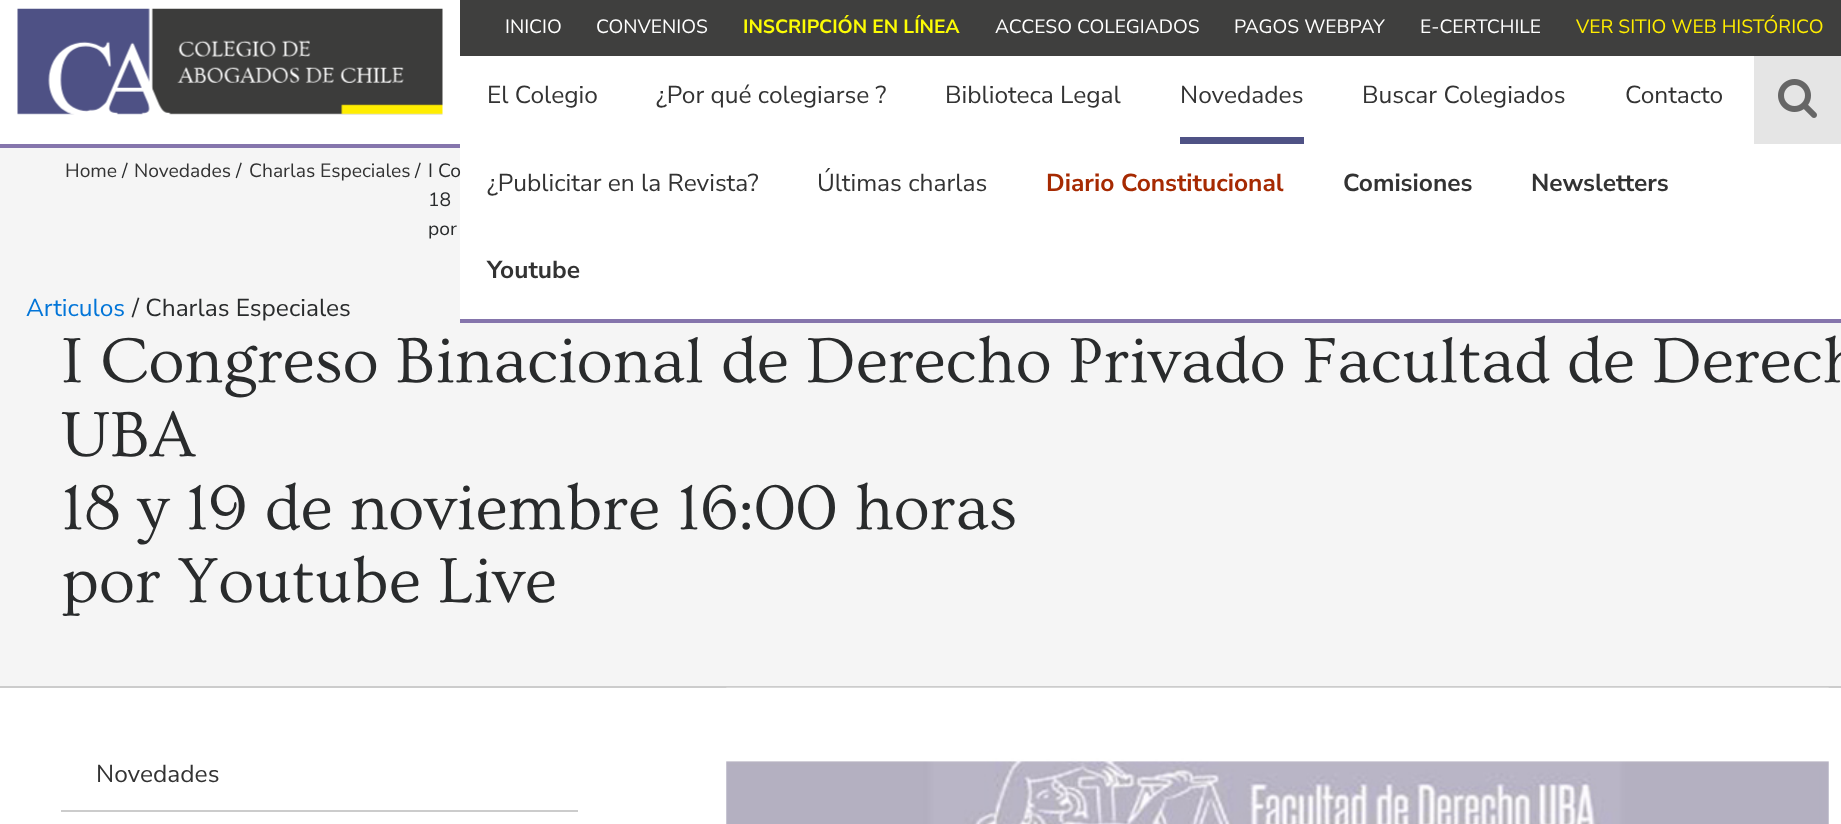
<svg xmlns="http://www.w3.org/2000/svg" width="1841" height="824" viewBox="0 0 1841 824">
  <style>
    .t1 { font: 19.25px Nunito Sans; fill: #fff; }
    .t2 { font: bold 19.25px Nunito Sans; fill: #fcfc05; }
    .t3 { font: 19.25px Nunito Sans; fill: #ffed00; }
    .t4 { font: 24.5px Nunito Sans; fill: #333; }
    .t5 { font: bold 24.5px Nunito Sans; fill: #a62a02; }
    .t6 { font: bold 24.5px Nunito Sans; fill: #333; }
    .t7 { font: 19.25px Nunito Sans; fill: #333; }
    .t8 { font: 19.25px Nunito Sans; fill: #292b2c; }
    .t9 { font: 24.5px Nunito Sans; fill: #0275d8; }
    .t10 { font: 24.5px Nunito Sans; fill: #292b2c; }
    .t11 { font: 66.5px Ovo; fill: #292b2c; }
  </style>
  <rect width="100%" height="100%" fill="#fff"/>
  <rect x="0" y="144" width="460" height="4" fill="#8575ac"/>
  <image x="17" y="8" width="426" height="107" href="images/1.png"/>
  <rect x="460" y="0" width="1381" height="56" fill="#3f3f3e"/>
  <text x="505" y="33" class="t1">INICIO</text>
  <text x="596" y="33" class="t1">CONVENIOS</text>
  <text x="743" y="33" class="t2">INSCRIPCIÓN EN LÍNEA</text>
  <text x="995" y="33" class="t1">ACCESO COLEGIADOS</text>
  <text x="1234" y="33" class="t1">PAGOS WEBPAY</text>
  <text x="1420" y="33" class="t1">E-CERTCHILE</text>
  <text x="1576" y="33" class="t3">VER SITIO WEB HISTÓRICO</text>
  <rect x="0" y="148" width="1841" height="538" fill="#f5f5f5"/>
  <rect x="460" y="148" width="1381" height="171" fill="#fff"/>
  <rect x="460" y="319" width="1381" height="4" fill="#8575ac"/>
  <text x="487" y="103" class="t4">El Colegio</text>
  <text x="656" y="103" class="t4">¿Por qué colegiarse ?</text>
  <text x="945" y="103" class="t4">Biblioteca Legal</text>
  <rect x="1180" y="137" width="124" height="7" fill="#4f5285"/>
  <text x="1180" y="103" class="t4">Novedades</text>
  <text x="1362" y="103" class="t4">Buscar Colegiados</text>
  <text x="1625" y="103" class="t4">Contacto</text>
  <text x="487" y="191" class="t4">¿Publicitar en la Revista?</text>
  <text x="817" y="191" class="t4">Últimas charlas</text>
  <text x="1046" y="191" class="t5">Diario Constitucional</text>
  <text x="1343" y="191" class="t6">Comisiones</text>
  <text x="1531" y="191" class="t6">Newsletters</text>
  <text x="487" y="278" class="t6">Youtube</text>
  <rect x="1754" y="56" width="87" height="88" fill="#e5e5e5"/>
  <image x="1778" y="79" width="39" height="39" href="images/2.png"/>
  <rect x="0" y="686" width="1841" height="2" fill="#ccc"/>
  <text x="65" y="177" class="t7">Home</text>
  <text x="122" y="177" class="t8">/</text>
  <text x="134" y="177" class="t7">Novedades</text>
  <text x="236" y="177" class="t8">/</text>
  <text x="249" y="177" class="t7">Charlas Especiales</text>
  <text x="415" y="177" class="t8">/</text>
  <text x="428" y="177" class="t8">I Co</text>
  <text x="428" y="206" class="t8">18</text>
  <text x="428" y="235" class="t8">por</text>
  <text x="26" y="316" class="t9">Articulos</text>
  <text x="132" y="316" class="t10">/ Charlas Especiales</text>
  <text x="61" y="382" class="t11">I Congreso Binacional de Derecho Privado Facultad de Derech</text>
  <text x="61" y="456" class="t11">UBA</text>
  <text x="61" y="529" class="t11">18 y 19 de noviembre 16:00 horas</text>
  <text x="61" y="602" class="t11">por Youtube Live</text>
  <rect x="61" y="810" width="517" height="2" fill="#ccc"/>
  <text x="96" y="782" class="t4">Novedades</text>
  <image x="726" y="687" width="1103" height="137" href="images/3.png"/>
</svg>
